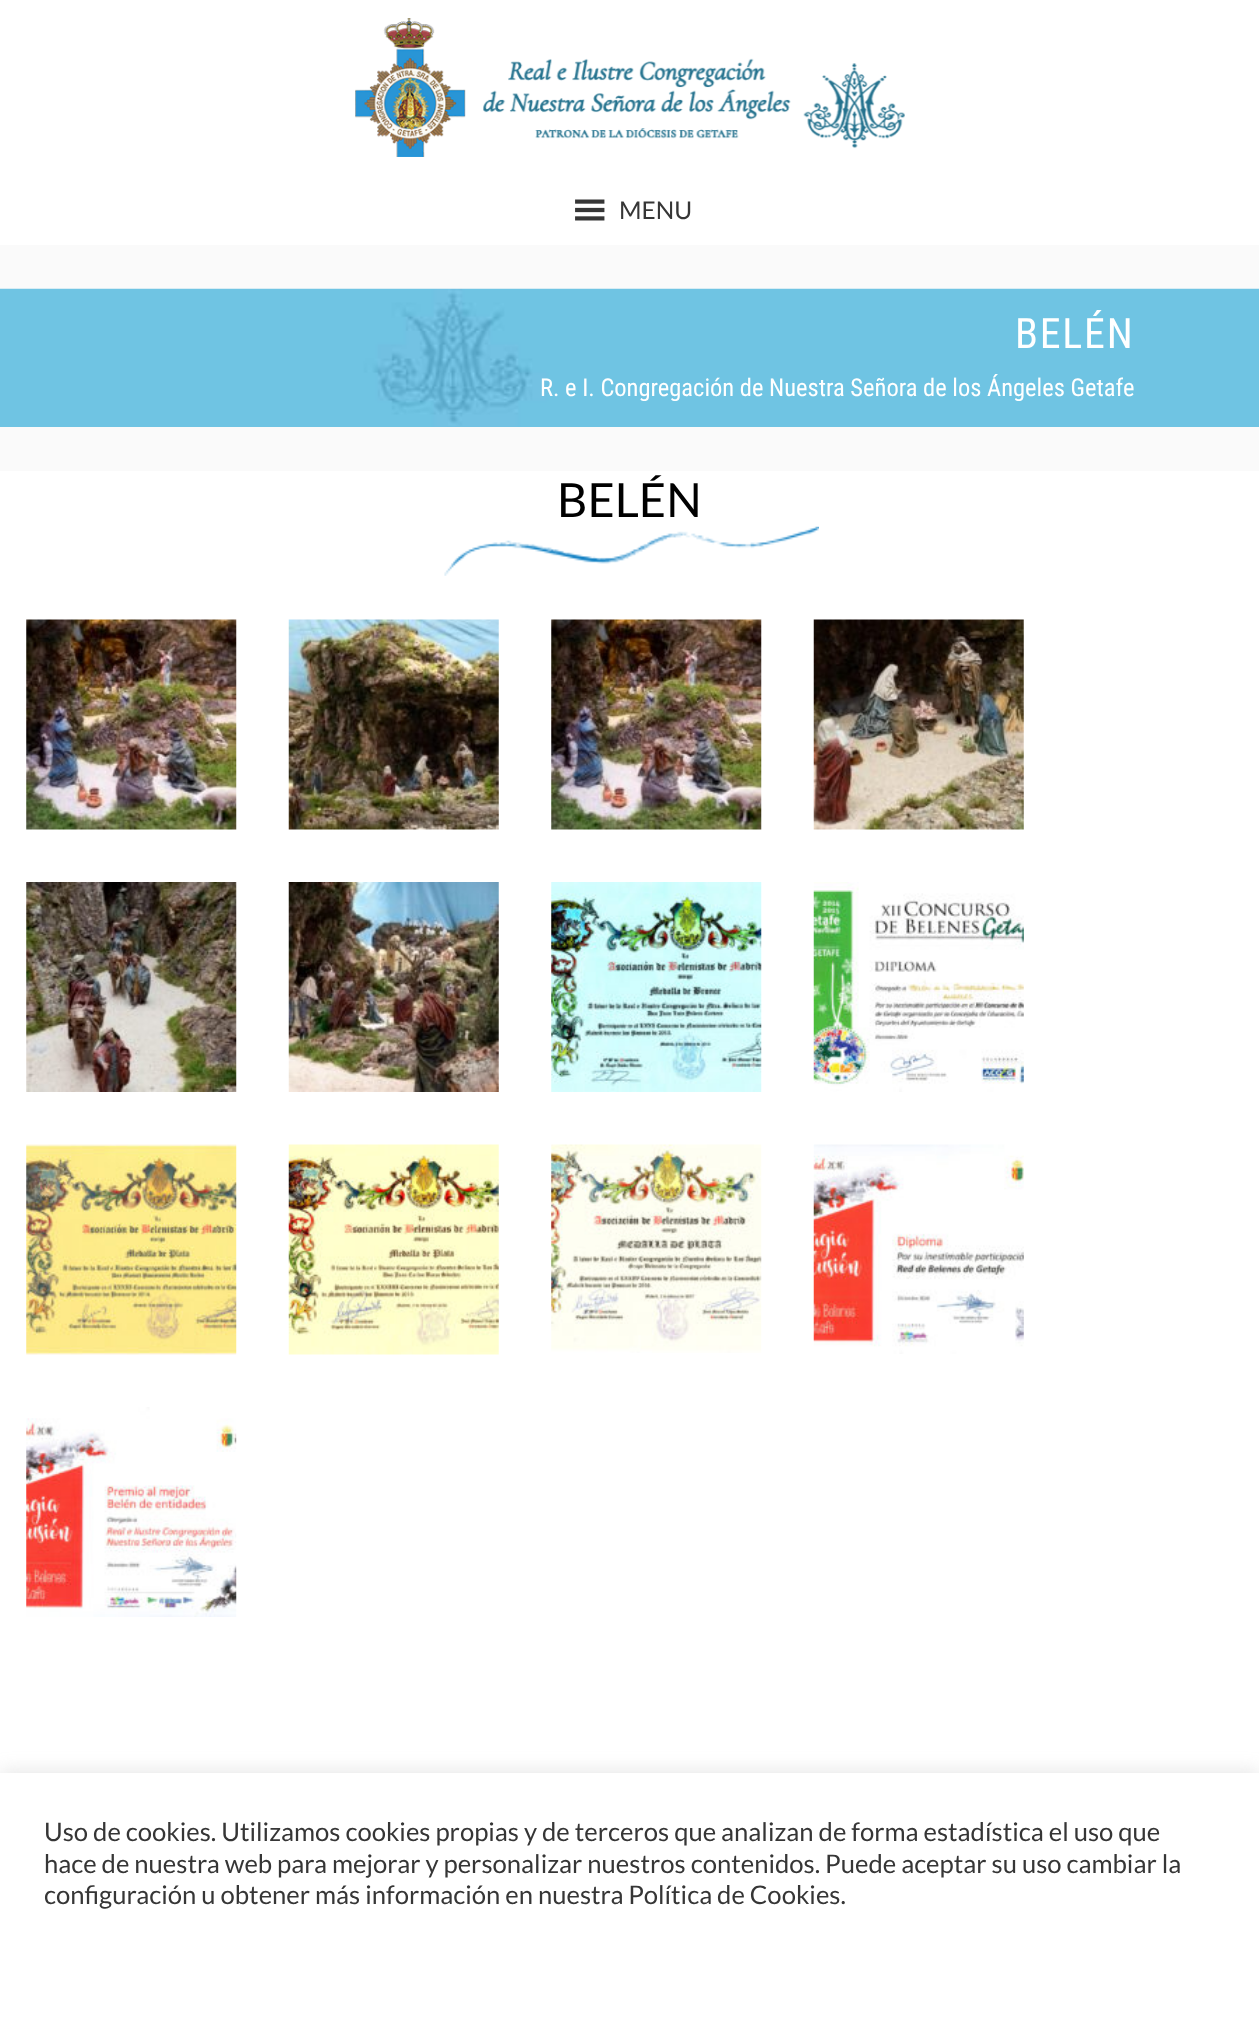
async function draw(canvas) {
  canvas.width = 1259;
  canvas.height = 2044;
  const ctx = canvas.getContext('2d');
  ctx.miterLimit = 4;
  ctx.fontKerning = 'normal';
  function label(s, x, y, font, color) {
    ctx.font = font;
    ctx.fillStyle = color;
    ctx.fillText(s, x, y);
  }
  function rect(x, y, w, h, color) {
    ctx.fillStyle = color;
    ctx.fillRect(x, y, w, h);
  }
  async function image(src, x, y, w, h) {
    const img = new Image();
    img.src = src;
    await img.decode();
    ctx.drawImage(img, x, y, w, h);
  }

  rect(0, 0, 1259, 2044, '#fff');
  await image('assets/img1.png', 355, 18, 550, 139);
  await image('assets/img2.png', 575, 199, 30, 22);
  label('MENU', 619, 219, '24.5px Lato', '#363636');
  rect(0, 245, 1259, 226, '#fafafa');
  await image('assets/img3.png', 0, 288, 1259, 139);
  ctx.letterSpacing = '1.75px';
  label('BELÉN', 1015, 348, '42px Roboto Condensed', '#fff');
  ctx.letterSpacing = '0px';
  label('R. e I. Congregación de Nuestra Señora de los Ángeles Getafe', 540, 396, '24.5px Roboto Condensed', '#fff');
  label('BELÉN', 557, 517, '47px Lato', '#000');
  await image('assets/img4.png', 444, 526, 375, 50);
  await image('assets/img5.png', 26, 619, 211, 211);
  await image('assets/img6.png', 288, 619, 211, 211);
  await image('assets/img7.png', 551, 619, 211, 211);
  await image('assets/img8.png', 813, 619, 211, 211);
  await image('assets/img9.png', 26, 882, 211, 210);
  await image('assets/img10.png', 288, 882, 211, 210);
  await image('assets/img11.png', 551, 882, 211, 210);
  await image('assets/img12.png', 813, 882, 211, 210);
  await image('assets/img13.png', 26, 1144, 211, 211);
  await image('assets/img14.png', 288, 1144, 211, 211);
  await image('assets/img15.png', 551, 1144, 211, 209);
  await image('assets/img16.png', 813, 1144, 211, 210);
  await image('assets/img17.png', 26, 1407, 211, 210);
  ctx.fillStyle = '#acabab4d';
  ctx.filter = 'blur(9px)';
  ctx.beginPath();
  ctx.rect(0, 1771, 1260, 271);
  ctx.fill();
  ctx.filter = 'none';
  rect(0, 1773, 1259, 271, '#fff');
  label('Uso de cookies. Utilizamos cookies propias y de terceros que analizan de forma estadística el uso que', 44, 1841, '25.65px Lato', '#363636');
  label('hace de nuestra web para mejorar y personalizar nuestros contenidos. Puede aceptar su uso cambiar la', 44, 1873, '25.65px Lato', '#363636');
  label('configuración u obtener más información en nuestra Política de Cookies.', 44, 1904, '25.65px Lato', '#363636');
}

draw(document.querySelector('canvas'));
